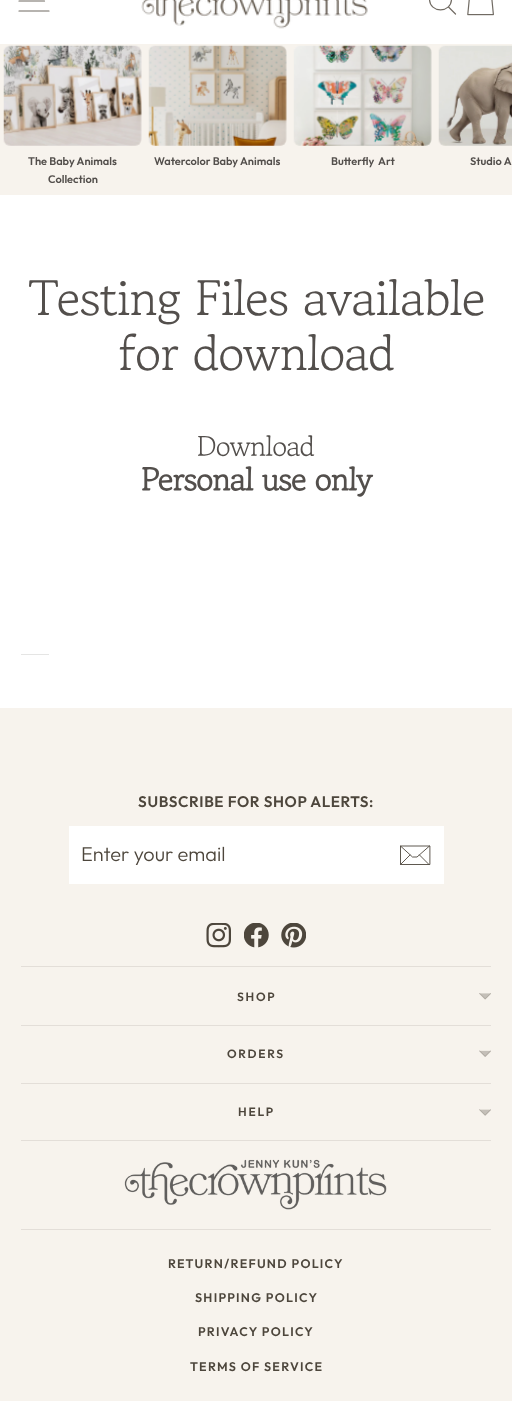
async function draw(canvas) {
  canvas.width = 512;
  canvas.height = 1401;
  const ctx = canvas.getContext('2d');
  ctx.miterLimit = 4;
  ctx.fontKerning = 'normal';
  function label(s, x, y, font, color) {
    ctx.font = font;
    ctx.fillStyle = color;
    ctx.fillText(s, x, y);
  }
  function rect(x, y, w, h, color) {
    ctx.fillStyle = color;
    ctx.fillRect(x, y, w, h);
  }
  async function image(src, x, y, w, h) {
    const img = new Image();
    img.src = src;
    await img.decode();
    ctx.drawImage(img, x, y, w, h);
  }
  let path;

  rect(0, 0, 512, 1401, '#fff');
  path = new Path2D('M19-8.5H49M19 1H44.5M19 11H49');
  ctx.strokeStyle = '#716b63';
  ctx.lineWidth = 1.2;
  ctx.lineCap = 'round';
  ctx.lineJoin = 'round';
  ctx.stroke(path);
  await image('assets/img1.png', 141, 0, 227, 29);
  path = new Path2D('M451.5-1C451.5 13.5 429.5 13.5 429.5-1C429.5-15 451.5-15 451.5-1ZM455.5 14L448.5 7');
  ctx.stroke(path);
  await image('assets/img2.png', 467, 0, 27, 16);
  rect(0, 44, 512, 151, '#f7f3ed');
  await image('assets/img3.png', 3, 45, 139, 101);
  label('The Baby Animals', 28, 165, '600 11px Outfit', '#534f4c');
  label('Collection', 48, 183, '600 11px Outfit', '#534f4c');
  await image('assets/img4.png', 148, 45, 139, 101);
  label('Watercolor Baby Animals', 154, 165, '600 11px Outfit', '#534f4c');
  await image('assets/img5.png', 293, 45, 139, 101);
  ctx.wordSpacing = '2px';
  label('Butterfly Art', 331, 165, '600 11px Outfit', '#534f4c');
  await image('assets/img6.png', 438, 45, 74, 101);
  ctx.wordSpacing = '0px';
  label('Studio A', 470, 165, '600 11px Outfit', '#534f4c');
  ctx.letterSpacing = '-0.9px';
  label('Testing Files available', 28, 319, '50px Gowun Batang', '#534f4c');
  label('for download', 119, 374, '50px Gowun Batang', '#534f4c');
  ctx.letterSpacing = '-0.75px';
  label('Download', 197, 458, '28.5px Gowun Batang', '#534f4c');
  ctx.letterSpacing = '-0.8px';
  label('Personal use only', 141, 493, 'bold 32.25px Gowun Batang', '#534f4c');
  rect(21, 654, 28, 1, '#e5e5e4');
  rect(0, 708, 512, 693, '#f7f3ed');
  ctx.letterSpacing = '0.6px';
  label('SUBSCRIBE FOR SHOP ALERTS:', 138, 807, '600 15.25px Outfit', '#4d463c');
  rect(69, 826, 375, 58, '#fff');
  ctx.letterSpacing = '0px';
  label('Enter your email', 81, 861, '300 20px Outfit', '#4d463c');
  path = new Path2D('M429.5 864.5H400.5V846H429.5ZM400.5 846L412.5 857H417L429.5 846M410 855L400.5 864.5M429 864.5L419.5 855');
  ctx.strokeStyle = '#4d463c';
  ctx.lineWidth = 0.9;
  ctx.stroke(path);
  await image('assets/img7.png', 206, 923, 25, 25);
  await image('assets/img8.png', 244, 923, 25, 25);
  await image('assets/img9.png', 281, 923, 25, 25);
  rect(21, 966, 470, 1, '#e3ded8');
  ctx.letterSpacing = '1.75px';
  label('SHOP', 237, 1001, '600 12px Outfit', '#4d463c');
  await image('assets/img10.png', 479, 993, 12, 7);
  rect(21, 1025, 470, 1, '#e3ded8');
  label('ORDERS', 227, 1058, '600 12px Outfit', '#4d463c');
  await image('assets/img11.png', 479, 1050, 12, 7);
  rect(21, 1083, 470, 1, '#e3ded8');
  label('HELP', 238, 1116, '600 12px Outfit', '#4d463c');
  await image('assets/img12.png', 479, 1109, 12, 7);
  rect(21, 1140, 470, 1, '#e3ded8');
  await image('assets/img13.png', 124, 1159, 263, 51);
  rect(21, 1229, 470, 1, '#e3ded8');
  ctx.letterSpacing = '1.25px';
  label('RETURN/REFUND POLICY', 168, 1268, '600 12.5px Outfit', '#4d463c');
  label('SHIPPING POLICY', 195, 1302, '600 12.5px Outfit', '#4d463c');
  label('PRIVACY POLICY', 198, 1336, '600 12.5px Outfit', '#4d463c');
  label('TERMS OF SERVICE', 190, 1371, '600 12.5px Outfit', '#4d463c');
}

draw(document.querySelector('canvas'));
